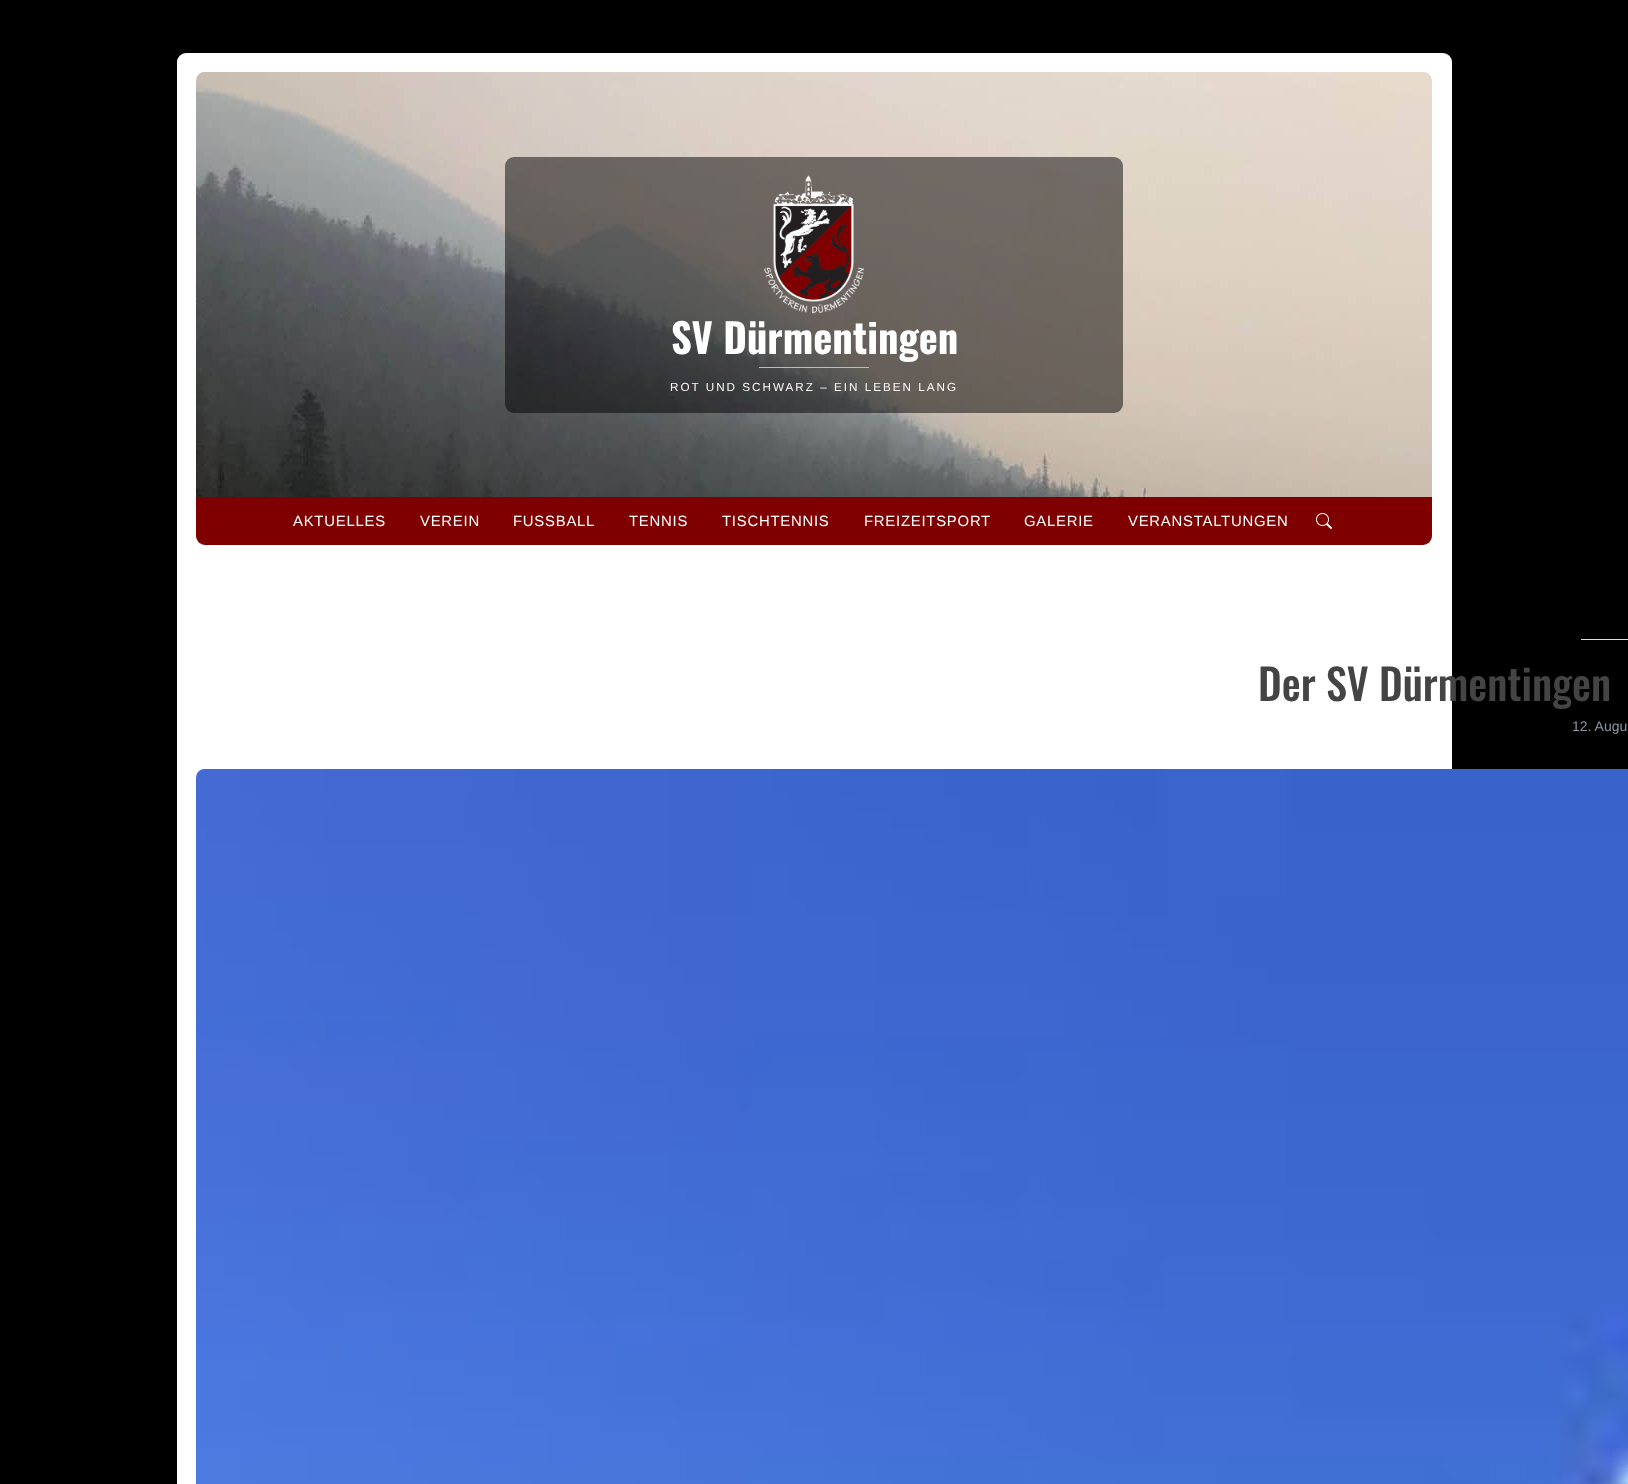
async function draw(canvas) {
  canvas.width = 1628;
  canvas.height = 1484;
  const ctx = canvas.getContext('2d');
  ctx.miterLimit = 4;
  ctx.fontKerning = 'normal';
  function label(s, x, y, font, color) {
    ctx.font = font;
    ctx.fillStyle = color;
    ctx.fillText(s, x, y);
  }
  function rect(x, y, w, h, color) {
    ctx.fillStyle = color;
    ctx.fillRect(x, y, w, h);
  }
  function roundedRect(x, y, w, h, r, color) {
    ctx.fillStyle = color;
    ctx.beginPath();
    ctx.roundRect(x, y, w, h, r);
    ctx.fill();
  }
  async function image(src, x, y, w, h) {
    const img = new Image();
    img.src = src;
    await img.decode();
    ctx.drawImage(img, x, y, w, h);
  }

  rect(0, 0, 1628, 1484, '#000');
  roundedRect(177, 53, 1275, 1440, 9, '#fff');
  await image('assets/img1.png', 196, 72, 1236, 425);
  roundedRect(505, 157, 618, 256, 9, '#00000080');
  await image('assets/img2.png', 764, 175, 100, 139);
  label('SV Dürmentingen', 671, 354, 'bold 40.5px Oswald', '#fff');
  rect(759, 367, 110, 1, '#babdc0');
  ctx.letterSpacing = '2px';
  label('ROT UND SCHWARZ – EIN LEBEN LANG', 670, 391, '11.7px Liberation Sans', '#fff7f7');
  ctx.fillStyle = '#7f0000';
  ctx.beginPath();
  ctx.roundRect(196, 497, 1236, 48, [0, 0, 9, 9]);
  ctx.fill();
  ctx.letterSpacing = '0.75px';
  label('AKTUELLES', 293, 526, '14.9px Liberation Sans', '#fff');
  label('VEREIN', 420, 526, '14.9px Liberation Sans', '#fff');
  label('FUSSBALL', 513, 526, '14.9px Liberation Sans', '#fff');
  label('TENNIS', 629, 526, '14.9px Liberation Sans', '#fff');
  label('TISCHTENNIS', 722, 526, '14.9px Liberation Sans', '#fff');
  label('FREIZEITSPORT', 864, 526, '14.9px Liberation Sans', '#fff');
  label('GALERIE', 1024, 526, '14.9px Liberation Sans', '#fff');
  label('VERANSTALTUNGEN', 1128, 526, '14.9px Liberation Sans', '#fff');
  await image('assets/img3.png', 1316, 513, 16, 16);
  rect(1581, 639, 47, 1, '#dae1e8');
  ctx.letterSpacing = '0px';
  label('Der SV Dürmentingen', 1258, 701, '500 42.5px Oswald', '#444');
  label('12. Augu', 1572, 731, '14px Liberation Sans', '#8f97a0');
  await image('assets/img4.png', 196, 769, 1432, 715);
}

draw(document.querySelector('canvas'));
